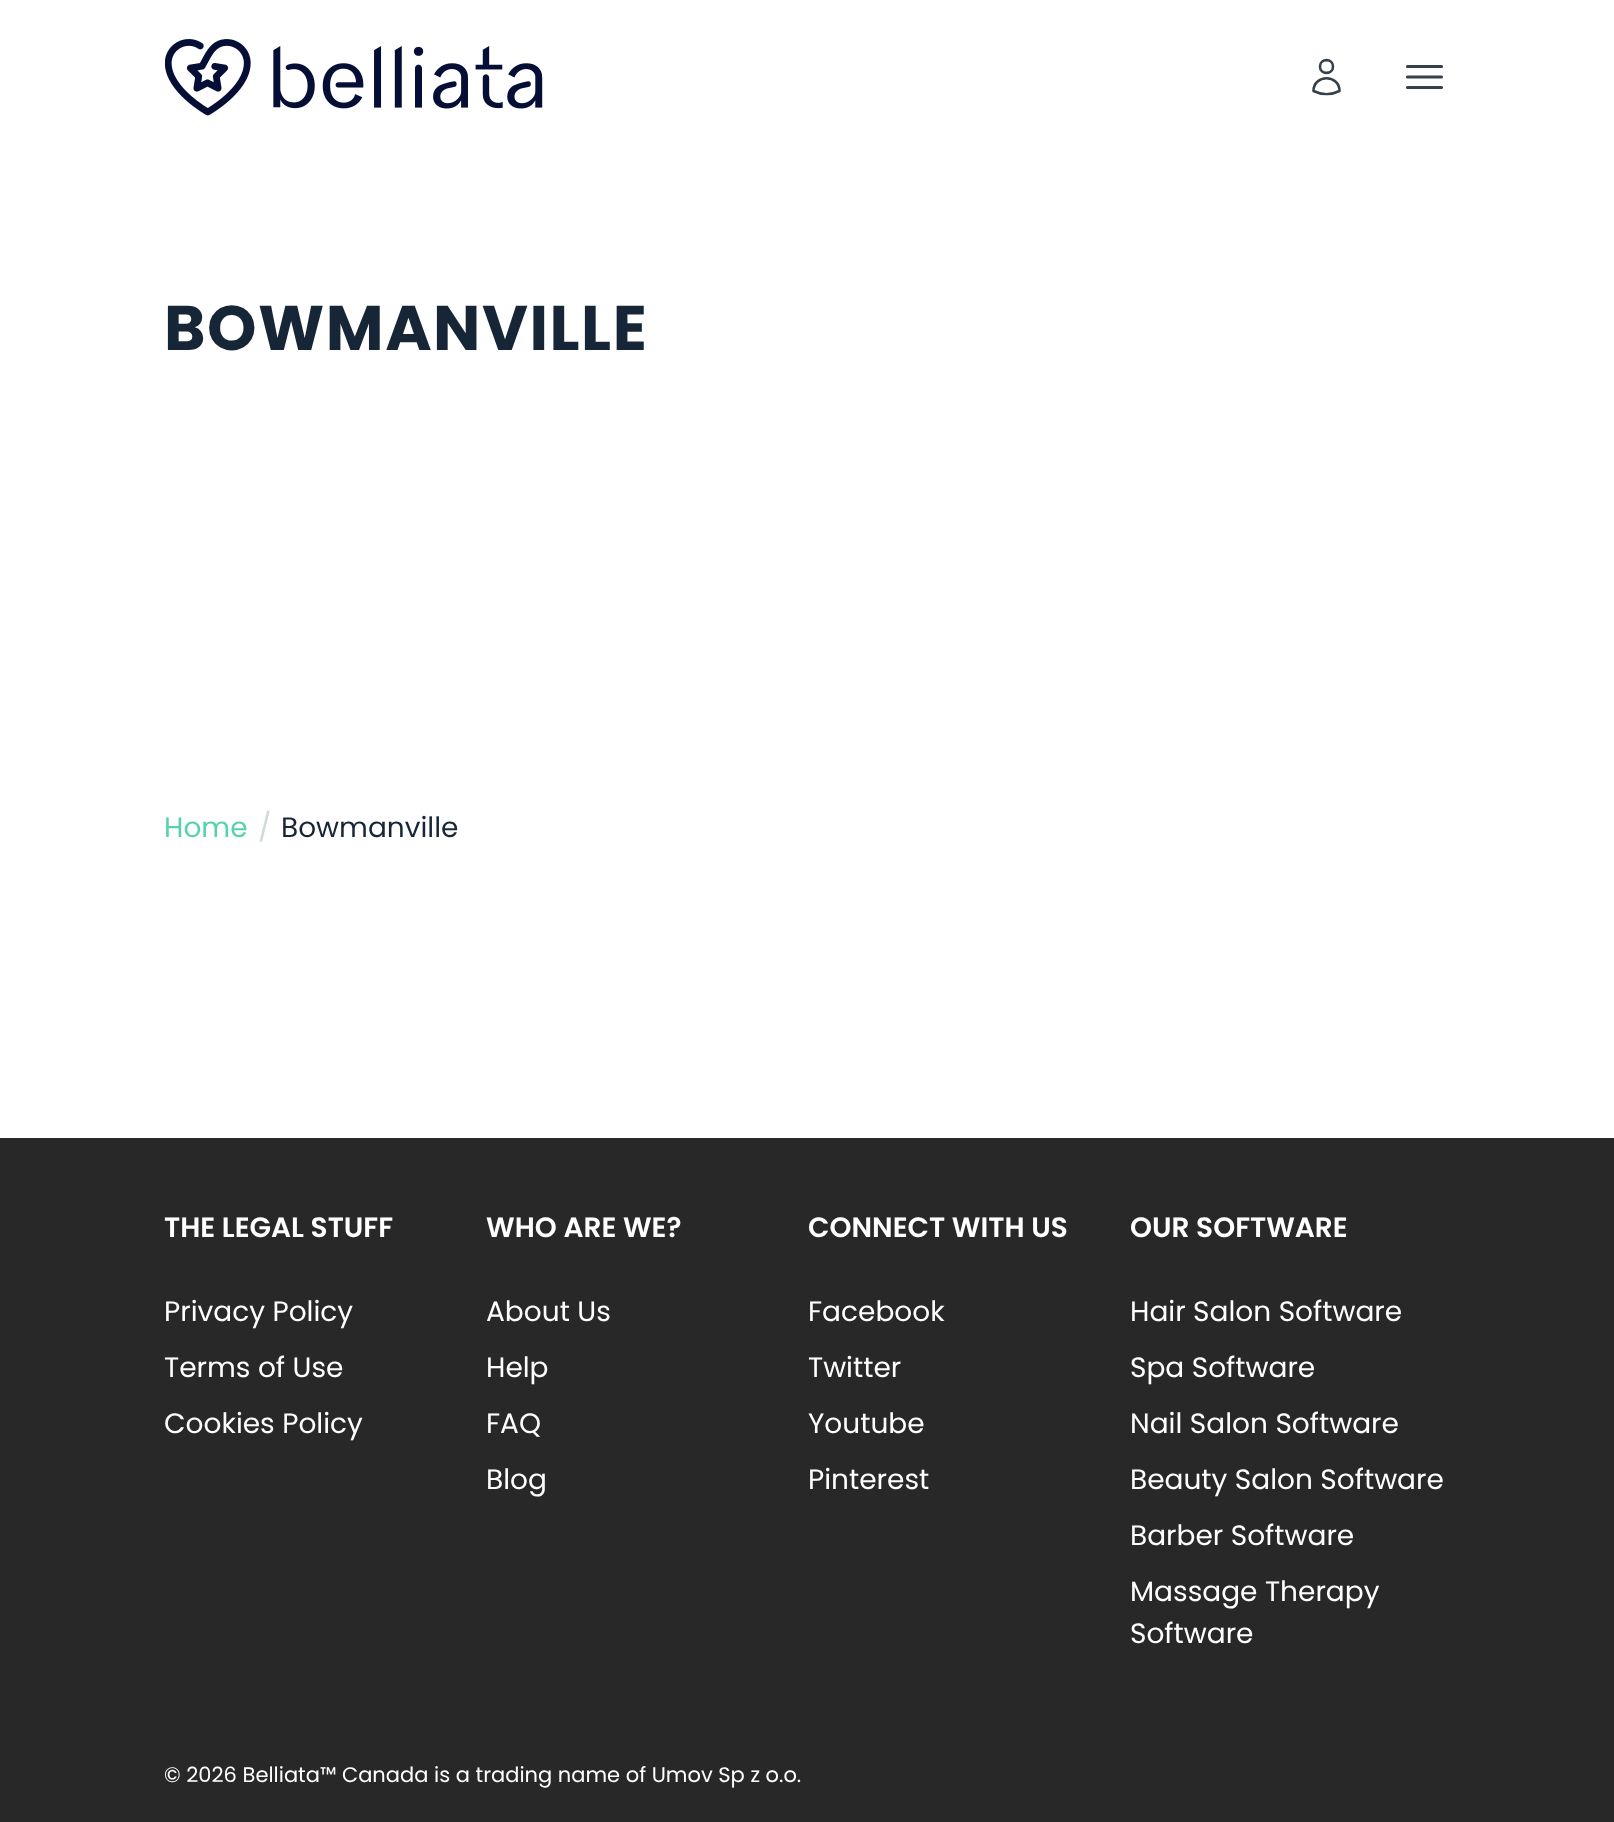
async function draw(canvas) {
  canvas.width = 1614;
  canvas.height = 1822;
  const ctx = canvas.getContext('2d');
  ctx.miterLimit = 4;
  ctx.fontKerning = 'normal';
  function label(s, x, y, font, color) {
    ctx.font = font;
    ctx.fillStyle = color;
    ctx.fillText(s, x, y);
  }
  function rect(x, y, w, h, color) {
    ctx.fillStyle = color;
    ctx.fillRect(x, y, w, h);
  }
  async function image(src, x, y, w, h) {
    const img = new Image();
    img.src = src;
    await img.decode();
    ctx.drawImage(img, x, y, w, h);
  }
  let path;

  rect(0, 0, 1614, 1822, '#fff');
  await image('assets/img1.png', 165, 39, 378, 77);
  path = new Path2D('M1333 66.5C1333 75 1320 75 1320 66.5C1320 58 1333 58 1333 66.5ZM1313.5 91C1313.5 74 1339.5 74 1339.5 91C1331.5 95 1321.5 95 1313.5 91Z');
  ctx.strokeStyle = '#36404a';
  ctx.lineWidth = 2.6;
  ctx.lineCap = 'round';
  ctx.lineJoin = 'round';
  ctx.stroke(path);
  path = new Path2D('M1407.5 66.5H1441.5M1407.5 77H1441.5M1407.5 87.5H1441.5');
  ctx.lineWidth = 3.1;
  ctx.stroke(path);
  ctx.letterSpacing = '1.5px';
  label('BOWMANVILLE', 164, 350, 'bold 63px Poppins', '#162637');
  ctx.letterSpacing = '0px';
  label('Home', 164, 837, '28px Poppins', '#56d2ae');
  label('/', 258, 837, '28px Poppins', '#cfdadb');
  label('Bowmanville', 281, 837, '28px Poppins', '#162637');
  rect(0, 1138, 1614, 684, '#282828');
  label('THE LEGAL STUFF', 164, 1237, '600 28px Poppins', '#fff');
  label('Privacy Policy', 164, 1321, '28px Poppins', '#fff');
  label('Terms of Use', 164, 1377, '28px Poppins', '#fff');
  label('Cookies Policy', 164, 1433, '28px Poppins', '#fff');
  label('WHO ARE WE?', 486, 1237, '600 28px Poppins', '#fff');
  label('About Us', 486, 1321, '28px Poppins', '#fff');
  label('Help', 486, 1377, '28px Poppins', '#fff');
  label('FAQ', 486, 1433, '28px Poppins', '#fff');
  label('Blog', 486, 1489, '28px Poppins', '#fff');
  label('CONNECT WITH US', 808, 1237, '600 28px Poppins', '#fff');
  label('Facebook', 808, 1321, '28px Poppins', '#fff');
  label('Twitter', 808, 1377, '28px Poppins', '#fff');
  label('Youtube', 808, 1433, '28px Poppins', '#fff');
  label('Pinterest', 808, 1489, '28px Poppins', '#fff');
  label('OUR SOFTWARE', 1130, 1237, '600 28px Poppins', '#fff');
  label('Hair Salon Software', 1130, 1321, '28px Poppins', '#fff');
  label('Spa Software', 1130, 1377, '28px Poppins', '#fff');
  label('Nail Salon Software', 1130, 1433, '28px Poppins', '#fff');
  label('Beauty Salon Software', 1130, 1489, '28px Poppins', '#fff');
  label('Barber Software', 1130, 1545, '28px Poppins', '#fff');
  label('Massage Therapy', 1130, 1601, '28px Poppins', '#fff');
  label('Software', 1130, 1643, '28px Poppins', '#fff');
  label('© 2026 Belliata™ Canada is a trading name of Umov Sp z o.o.', 164, 1782, '21px Poppins', '#fff');
}

draw(document.querySelector('canvas'));
